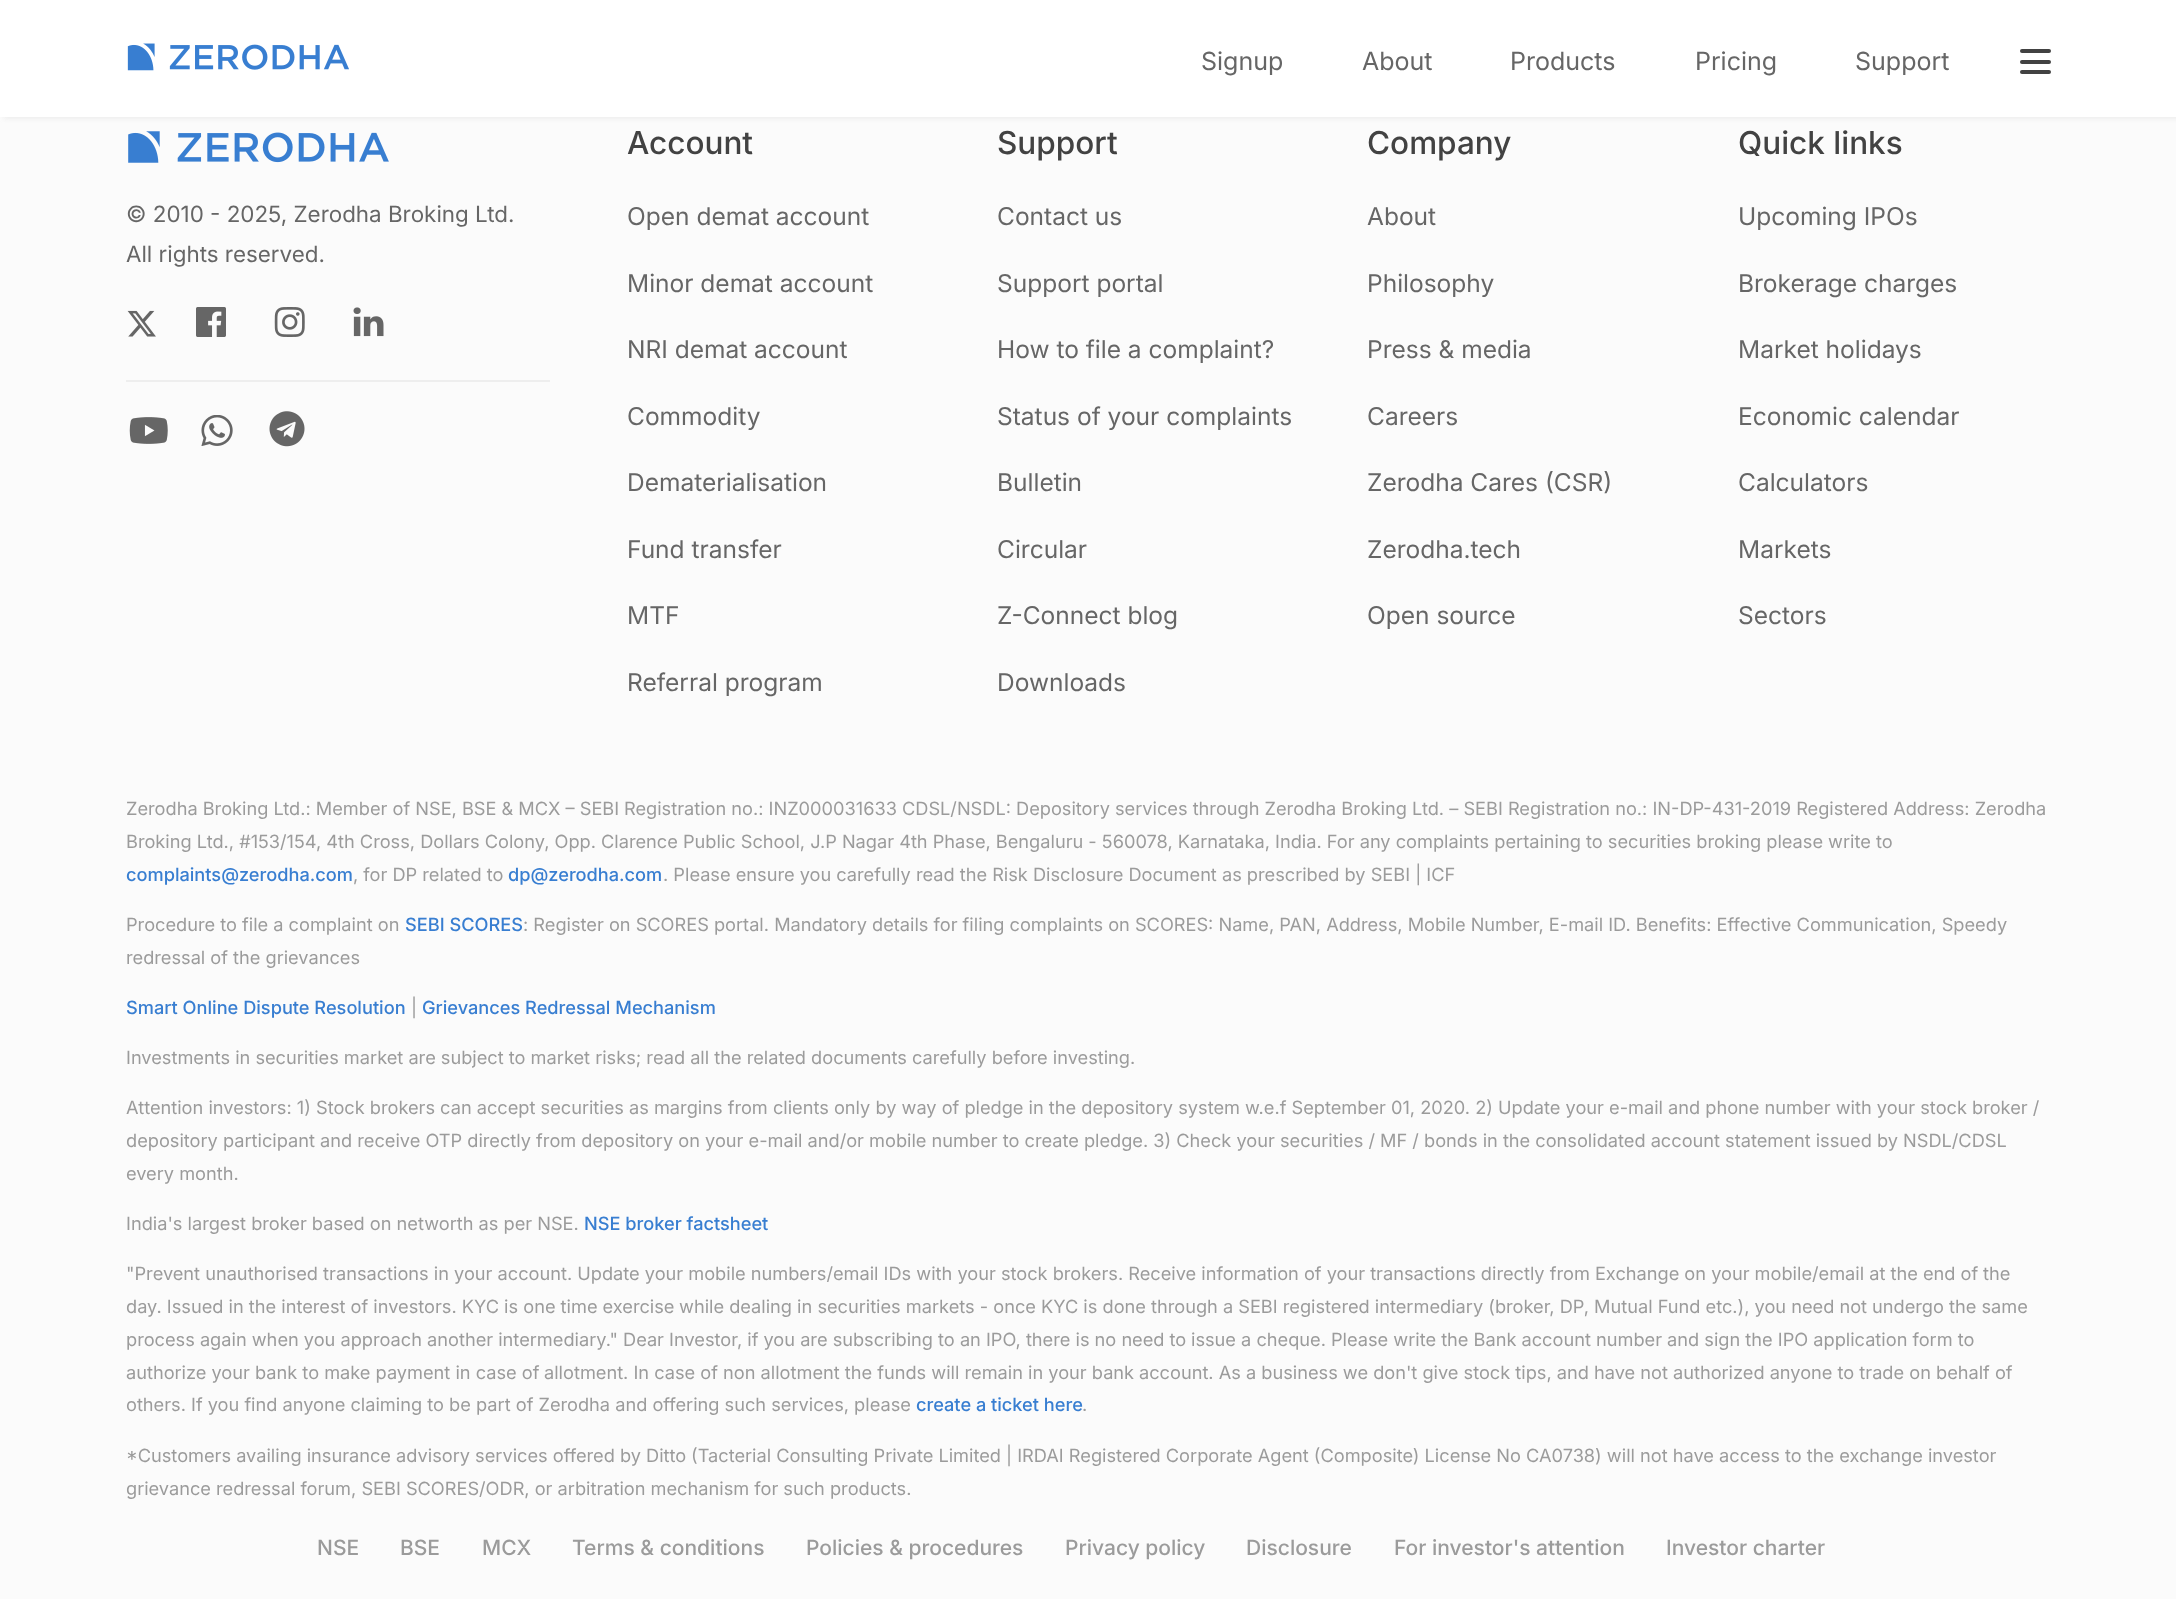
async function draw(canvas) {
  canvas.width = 2176;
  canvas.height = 1599;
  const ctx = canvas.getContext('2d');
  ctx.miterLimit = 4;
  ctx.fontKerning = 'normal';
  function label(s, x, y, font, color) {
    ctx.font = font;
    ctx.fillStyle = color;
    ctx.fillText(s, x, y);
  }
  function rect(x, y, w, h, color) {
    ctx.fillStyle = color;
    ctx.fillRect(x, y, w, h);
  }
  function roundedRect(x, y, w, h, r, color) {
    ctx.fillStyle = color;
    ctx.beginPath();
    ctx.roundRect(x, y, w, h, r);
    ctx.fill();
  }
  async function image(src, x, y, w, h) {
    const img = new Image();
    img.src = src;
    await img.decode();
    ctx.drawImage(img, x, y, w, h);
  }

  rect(0, 0, 2176, 1599, '#fbfbfb');
  ctx.fillStyle = '#eee';
  ctx.filter = 'blur(2px)';
  ctx.beginPath();
  ctx.rect(4, 2, 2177, 117);
  ctx.fill();
  ctx.filter = 'none';
  rect(0, 0, 2176, 117, '#fff');
  await image('assets/img1.png', 127, 43, 222, 28);
  label('Signup', 1201, 70, '25px Inter', '#666');
  label('About', 1362, 70, '25px Inter', '#666');
  label('Products', 1510, 70, '25px Inter', '#666');
  label('Pricing', 1695, 70, '25px Inter', '#666');
  label('Support', 1855, 70, '25px Inter', '#666');
  roundedRect(2020, 49, 31, 4, 2, '#424242');
  roundedRect(2020, 60, 31, 4, 2, '#424242');
  roundedRect(2020, 70, 31, 4, 2, '#424242');
  await image('assets/img2.png', 128, 131, 261, 32);
  label('© 2010 - 2025, Zerodha Broking Ltd.', 126, 222, '22.4px Inter', '#666');
  label('All rights reserved.', 126, 262, '22.4px Inter', '#666');
  await image('assets/img3.png', 127, 310, 29, 27);
  await image('assets/img4.png', 196, 307, 30, 30);
  await image('assets/img5.png', 274, 307, 31, 30);
  await image('assets/img6.png', 353, 307, 31, 30);
  rect(126, 380, 424, 2, '#eee');
  await image('assets/img7.png', 129, 417, 39, 27);
  await image('assets/img8.png', 201, 415, 32, 31);
  await image('assets/img9.png', 269, 411, 36, 36);
  label('Account', 627, 154, '500 31.5px Inter', '#424242');
  label('Open demat account', 627, 225, '24.5px Inter', '#666');
  label('Minor demat account', 627, 292, '24.5px Inter', '#666');
  label('NRI demat account', 627, 358, '24.5px Inter', '#666');
  label('Commodity', 627, 425, '24.5px Inter', '#666');
  label('Dematerialisation', 627, 491, '24.5px Inter', '#666');
  label('Fund transfer', 627, 558, '24.5px Inter', '#666');
  label('MTF', 627, 624, '24.5px Inter', '#666');
  label('Referral program', 627, 691, '24.5px Inter', '#666');
  label('Support', 997, 154, '500 31.5px Inter', '#424242');
  label('Contact us', 997, 225, '24.5px Inter', '#666');
  label('Support portal', 997, 292, '24.5px Inter', '#666');
  label('How to file a complaint?', 997, 358, '24.5px Inter', '#666');
  label('Status of your complaints', 997, 425, '24.5px Inter', '#666');
  label('Bulletin', 997, 491, '24.5px Inter', '#666');
  label('Circular', 997, 558, '24.5px Inter', '#666');
  label('Z-Connect blog', 997, 624, '24.5px Inter', '#666');
  label('Downloads', 997, 691, '24.5px Inter', '#666');
  label('Company', 1367, 154, '500 31.5px Inter', '#424242');
  label('About', 1367, 225, '24.5px Inter', '#666');
  label('Philosophy', 1367, 292, '24.5px Inter', '#666');
  label('Press & media', 1367, 358, '24.5px Inter', '#666');
  label('Careers', 1367, 425, '24.5px Inter', '#666');
  label('Zerodha Cares (CSR)', 1367, 491, '24.5px Inter', '#666');
  label('Zerodha.tech', 1367, 558, '24.5px Inter', '#666');
  label('Open source', 1367, 624, '24.5px Inter', '#666');
  label('Quick links', 1738, 154, '500 31.5px Inter', '#424242');
  label('Upcoming IPOs', 1738, 225, '24.5px Inter', '#666');
  label('Brokerage charges', 1738, 292, '24.5px Inter', '#666');
  label('Market holidays', 1738, 358, '24.5px Inter', '#666');
  label('Economic calendar', 1738, 425, '24.5px Inter', '#666');
  label('Calculators', 1738, 491, '24.5px Inter', '#666');
  label('Markets', 1738, 558, '24.5px Inter', '#666');
  label('Sectors', 1738, 624, '24.5px Inter', '#666');
  label('Zerodha Broking Ltd.: Member of NSE, BSE & MCX – SEBI', 126, 815, '18.2px Inter', '#9b9b9b');
  label('Registration no.: INZ000031633 CDSL/NSDL: Depository services through Zerodha Broking Ltd. – SEBI Registration no.: IN-DP-431-2019 Registered Address: Zerodha', 624, 815, '18.2px Inter', '#9b9b9b');
  label('Broking Ltd., #153/154, 4th Cross, Dollars Colony, Opp. Clarence Public School, J.P Nagar 4th Phase, Bengaluru - 560078, Karnataka, India. For any complaints pertaining to securities broking please write to', 126, 848, '18.2px Inter', '#9b9b9b');
  label('complaints@zerodha.com', 126, 881, '500 18.2px Inter', '#387ed1');
  label(', for DP related to', 353, 881, '18.2px Inter', '#9b9b9b');
  label('dp@zerodha.com', 508, 881, '500 18.2px Inter', '#387ed1');
  label('. Please ensure you carefully read the Risk Disclosure Document as prescribed by SEBI | ICF', 663, 881, '18.2px Inter', '#9b9b9b');
  label('Procedure to file a complaint on', 126, 931, '18.2px Inter', '#9b9b9b');
  label('SEBI SCORES', 405, 931, '500 18.2px Inter', '#387ed1');
  label(': Register on SCORES portal. Mandatory details for filing complaints on SCORES: Name, PAN, Address, Mobile Number, E-mail ID. Benefits: Effective Communication, Speedy', 523, 931, '18.2px Inter', '#9b9b9b');
  label('redressal of the grievances', 126, 964, '18.2px Inter', '#9b9b9b');
  label('Smart Online Dispute Resolution', 126, 1014, '500 18.2px Inter', '#387ed1');
  label('|', 411, 1014, '18.2px Inter', '#9b9b9b');
  label('Grievances Redressal Mechanism', 422, 1014, '500 18.2px Inter', '#387ed1');
  label('Investments in securities market are subject to market risks; read all the related documents carefully before investing.', 126, 1064, '18.2px Inter', '#9b9b9b');
  label('Attention investors: 1) Stock brokers can accept securities as margins from clients only by way of pledge in the depository system w.e.f September 01, 2020. 2) Update your e-mail and phone number with your stock broker /', 126, 1114, '18.2px Inter', '#9b9b9b');
  label('depository participant and receive OTP directly from depository on your e-mail and/or mobile number to create pledge. 3) Check your securities / MF / bonds in the consolidated account statement issued by NSDL/CDSL', 126, 1147, '18.2px Inter', '#9b9b9b');
  label('every month.', 126, 1180, '18.2px Inter', '#9b9b9b');
  label('India\'s largest broker based on networth as per NSE.', 126, 1230, '18.2px Inter', '#9b9b9b');
  label('NSE broker factsheet', 584, 1230, '500 18.2px Inter', '#387ed1');
  label('"Prevent unauthorised transactions in your account. Update your mobile numbers/email IDs with your stock brokers. Receive information of your transactions directly from Exchange on your mobile/email at the end of', 126, 1280, '18.2px Inter', '#9b9b9b');
  label('the', 1983, 1280, '18.2px Inter', '#9b9b9b');
  label('day. Issued in the interest of investors. KYC is one time exercise', 126, 1313, '18.2px Inter', '#9b9b9b');
  label('while dealing in securities markets - once KYC is done through a SEBI registered intermediary (broker, DP, Mutual Fund etc.), you need not', 679, 1313, '18.2px Inter', '#9b9b9b');
  label('undergo the same', 1872, 1313, '18.2px Inter', '#9b9b9b');
  label('process again when you approach another intermediary."', 126, 1346, '18.2px Inter', '#9b9b9b');
  label('Dear Investor, if you are subscribing to an IPO, there is no need to', 623, 1346, '18.2px Inter', '#9b9b9b');
  label('issue a cheque. Please write the Bank account number and sign the IPO application form to', 1191, 1346, '18.2px Inter', '#9b9b9b');
  label('authorize your bank to make payment in case of', 126, 1379, '18.2px Inter', '#9b9b9b');
  label('allotment. In case of non allotment the funds will remain in your bank', 544, 1379, '18.2px Inter', '#9b9b9b');
  label('account. As a business we don\'t give stock tips, and have not authorized anyone to trade on behalf of', 1139, 1379, '18.2px Inter', '#9b9b9b');
  label('others. If you find anyone claiming to be', 126, 1411, '18.2px Inter', '#9b9b9b');
  label('part of Zerodha and offering such services, please', 476, 1411, '18.2px Inter', '#9b9b9b');
  label('create a ticket here', 916, 1411, '500 18.2px Inter', '#387ed1');
  label('.', 1082, 1411, '18.2px Inter', '#9b9b9b');
  label('*Customers availing insurance advisory services offered by Ditto', 126, 1462, '18.2px Inter', '#9b9b9b');
  label('(Tacterial Consulting Private Limited | IRDAI Registered Corporate Agent (Composite) License No CA0738) will not have access to the exchange investor', 691, 1462, '18.2px Inter', '#9b9b9b');
  label('grievance redressal forum, SEBI SCORES/ODR, or arbitration mechanism for such products.', 126, 1495, '18.2px Inter', '#9b9b9b');
  label('NSE', 317, 1555, '500 21px Inter', '#9b9b9b');
  label('BSE', 400, 1555, '500 21px Inter', '#9b9b9b');
  label('MCX', 482, 1555, '500 21px Inter', '#9b9b9b');
  label('Terms & conditions', 572, 1555, '500 21px Inter', '#9b9b9b');
  label('Policies & procedures', 806, 1555, '500 21px Inter', '#9b9b9b');
  label('Privacy policy', 1065, 1555, '500 21px Inter', '#9b9b9b');
  label('Disclosure', 1246, 1555, '500 21px Inter', '#9b9b9b');
  label('For investor\'s attention', 1394, 1555, '500 21px Inter', '#9b9b9b');
  label('Investor charter', 1666, 1555, '500 21px Inter', '#9b9b9b');
}

draw(document.querySelector('canvas'));
